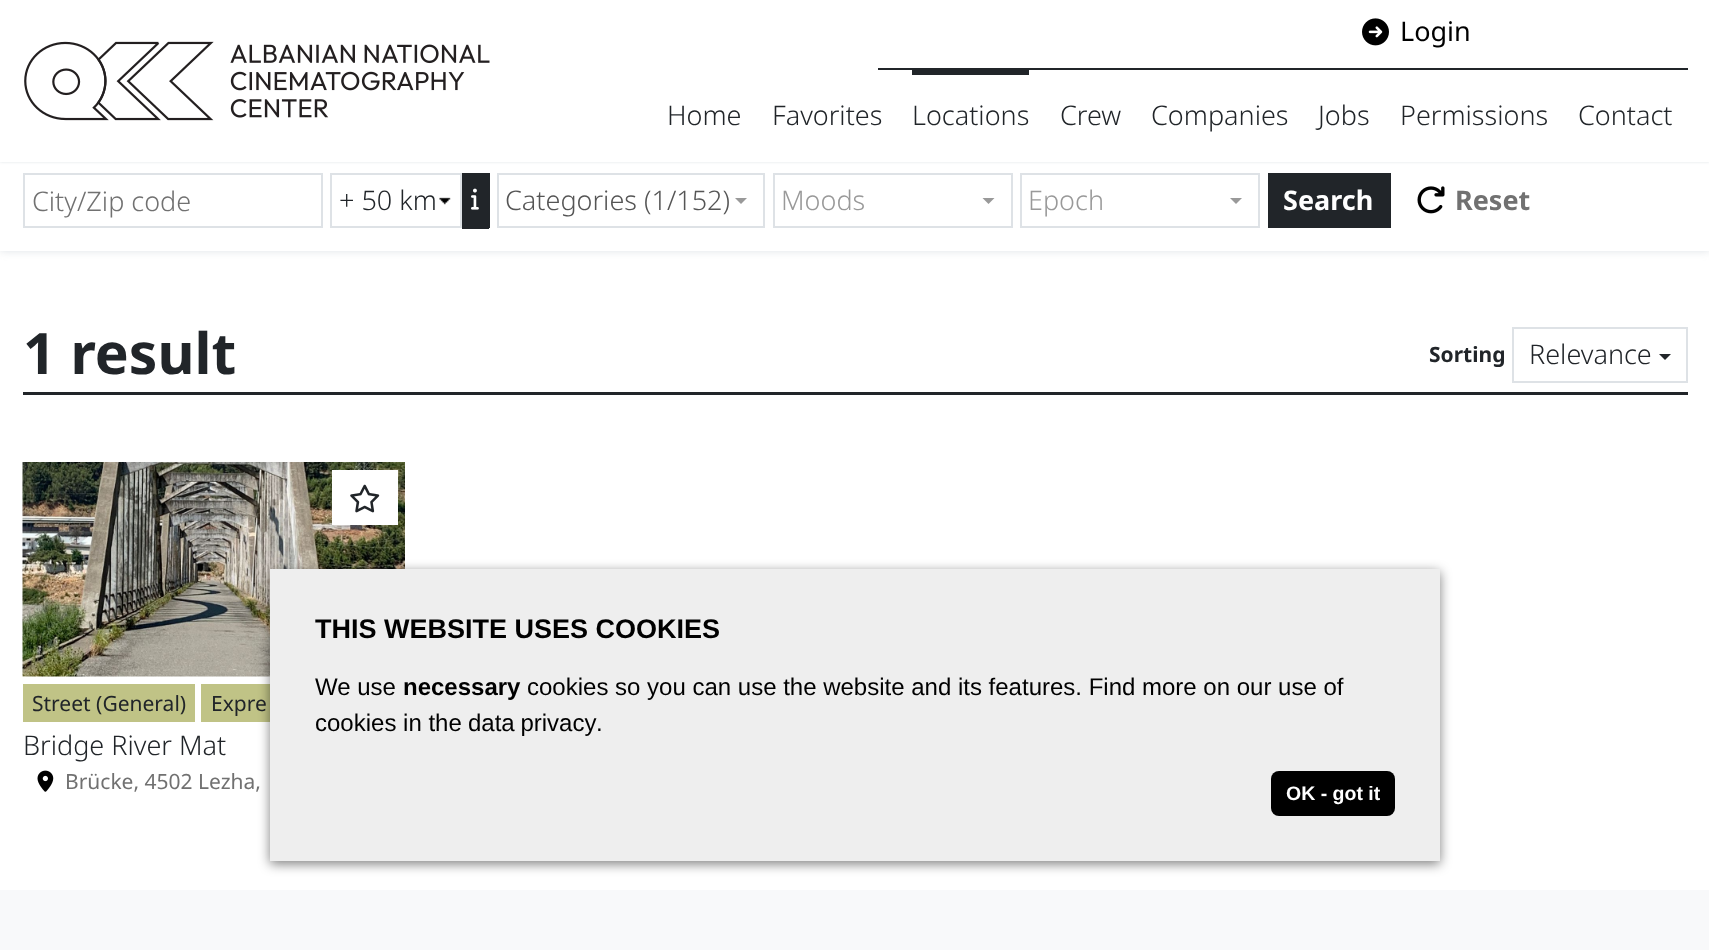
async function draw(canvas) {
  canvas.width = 1709;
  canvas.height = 950;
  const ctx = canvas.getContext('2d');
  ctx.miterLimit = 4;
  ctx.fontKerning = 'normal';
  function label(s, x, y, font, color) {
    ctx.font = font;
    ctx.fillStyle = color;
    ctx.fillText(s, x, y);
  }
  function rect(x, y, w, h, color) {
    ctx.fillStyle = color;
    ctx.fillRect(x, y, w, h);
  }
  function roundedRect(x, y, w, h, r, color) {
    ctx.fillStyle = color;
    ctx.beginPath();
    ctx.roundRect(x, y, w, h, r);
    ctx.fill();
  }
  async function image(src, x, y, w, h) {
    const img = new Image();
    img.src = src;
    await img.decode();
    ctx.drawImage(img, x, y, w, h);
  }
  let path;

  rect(0, 0, 1709, 950, '#fff');
  ctx.fillStyle = '#dee2e6';
  ctx.filter = 'blur(4px)';
  ctx.beginPath();
  ctx.rect(0, 150, 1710, 101);
  ctx.fill();
  ctx.filter = 'none';
  rect(0, 162, 1709, 89, '#fff');
  ctx.fillStyle = '#dee2e6';
  ctx.filter = 'blur(1.5px)';
  ctx.beginPath();
  ctx.rect(0, 0, 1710, 162);
  ctx.fill();
  ctx.filter = 'none';
  rect(0, 0, 1709, 162, '#fff');
  await image('assets/img1.png', 24, 41, 466, 80);
  rect(878, 68, 810, 2, '#212529');
  await image('assets/img2.png', 1362, 18, 27, 28);
  label('Login', 1400, 41, '27px Noto Sans', '#000');
  label('Home', 667, 125, '300 27px Noto Sans', '#212529');
  label('Favorites', 772, 125, '300 27px Noto Sans', '#212529');
  rect(912, 70, 117, 5, '#212529');
  label('Locations', 912, 125, '300 27px Noto Sans', '#212529');
  label('Crew', 1060, 125, '300 27px Noto Sans', '#212529');
  label('Companies', 1151, 125, '300 27px Noto Sans', '#212529');
  label('Jobs', 1318, 125, '300 27px Noto Sans', '#212529');
  label('Permissions', 1400, 125, '300 27px Noto Sans', '#212529');
  label('Contact', 1578, 125, '300 27px Noto Sans', '#212529');
  ctx.strokeStyle = '#dee2e6';
  ctx.lineWidth = 2;
  ctx.strokeRect(24, 174, 298, 53);
  label('City/Zip code', 32, 211, '300 27px Noto Sans', '#717171');
  await image('assets/img3.png', 439, 197, 12, 8);
  ctx.strokeRect(331, 174, 130, 53);
  label('+ 50 km', 339, 210, '300 27px Noto Sans', '#212529');
  rect(462, 173, 26, 54, '#212529');
  rect(488, 173, 2, 55, '#212529');
  rect(462, 227, 27, 2, '#212529');
  await image('assets/img4.png', 471, 188, 8, 22);
  ctx.strokeRect(498, 174, 266, 53);
  label('Categories (1/152)', 505, 210, '300 27px Noto Sans', '#555');
  ctx.fillStyle = '#999';
  path = new Path2D('M735 198H747L741 204Z');
  ctx.fill(path);
  ctx.strokeRect(774, 174, 238, 53);
  label('Moods', 781, 210, '300 27px Noto Sans', '#999');
  path = new Path2D('M982.5 198H994.5L988.5 204Z');
  ctx.fill(path);
  ctx.strokeRect(1021, 174, 238, 53);
  label('Epoch', 1028, 210, '300 27px Noto Sans', '#999');
  path = new Path2D('M1230 198H1242L1236 204Z');
  ctx.fill(path);
  rect(1268, 173, 123, 55, '#212529');
  label('Search', 1283, 210, 'bold 27px Noto Sans', '#fff');
  await image('assets/img5.png', 1417, 186, 28, 28);
  label('Reset', 1455, 210, 'bold 27px Noto Sans', '#717171');
  rect(23, 392, 1665, 3, '#212529');
  label('1 result', 23, 374, 'bold 57px Noto Sans', '#212529');
  label('Sorting', 1429, 362, 'bold 21px Noto Sans', '#212529');
  ctx.strokeRect(1513, 328, 174, 54);
  label('Relevance', 1529, 364, '300 27px Noto Sans', '#212529');
  path = new Path2D('M1659 354H1671L1665 360Z');
  ctx.fill(path);
  await image('assets/img6.png', 22, 462, 383, 215);
  rect(332, 470, 66, 55, '#fff');
  await image('assets/img7.png', 350, 484, 30, 29);
  rect(23, 684, 172, 38, '#c0c386');
  label('Street (General)', 32, 711, '21px Noto Sans', '#212529');
  rect(201, 684, 69, 38, '#c0c386');
  label('Expre', 211, 711, '21px Noto Sans', '#212529');
  label('Bridge River Mat', 23, 755, '300 27px Noto Sans', '#212529');
  await image('assets/img8.png', 37, 770, 17, 22);
  label('Brücke, 4502 Lezha,', 65, 789, '21px Noto Sans', '#717171');
  ctx.fillStyle = '#00000080';
  ctx.filter = 'blur(6px)';
  ctx.beginPath();
  ctx.rect(270, 572, 1170, 292);
  ctx.fill();
  ctx.filter = 'none';
  rect(270, 569, 1170, 292, '#eee');
  label('THIS WEBSITE USES COOKIES', 315, 638, 'bold 27px Liberation Sans', '#000');
  label('We use', 315, 695, '24px Liberation Sans', '#000');
  label('necessary', 403, 695, 'bold 24px Liberation Sans', '#000');
  label('cookies so you can use the website and its features. Find more on our use of', 527, 695, '24px Liberation Sans', '#000');
  label('cookies in the', 315, 731, '24px Liberation Sans', '#000');
  ctx.wordSpacing = '-1px';
  label('data privacy', 468, 731, '24px Liberation Sans', '#000');
  ctx.wordSpacing = '0px';
  label('.', 596, 731, '24px Liberation Sans', '#000');
  roundedRect(1271, 771, 124, 45, 8, '#000');
  label('OK - got it', 1286, 800, 'bold 19.5px Liberation Sans', '#fff');
  rect(0, 890, 1709, 60, '#f8f9fa');
}

draw(document.querySelector('canvas'));
